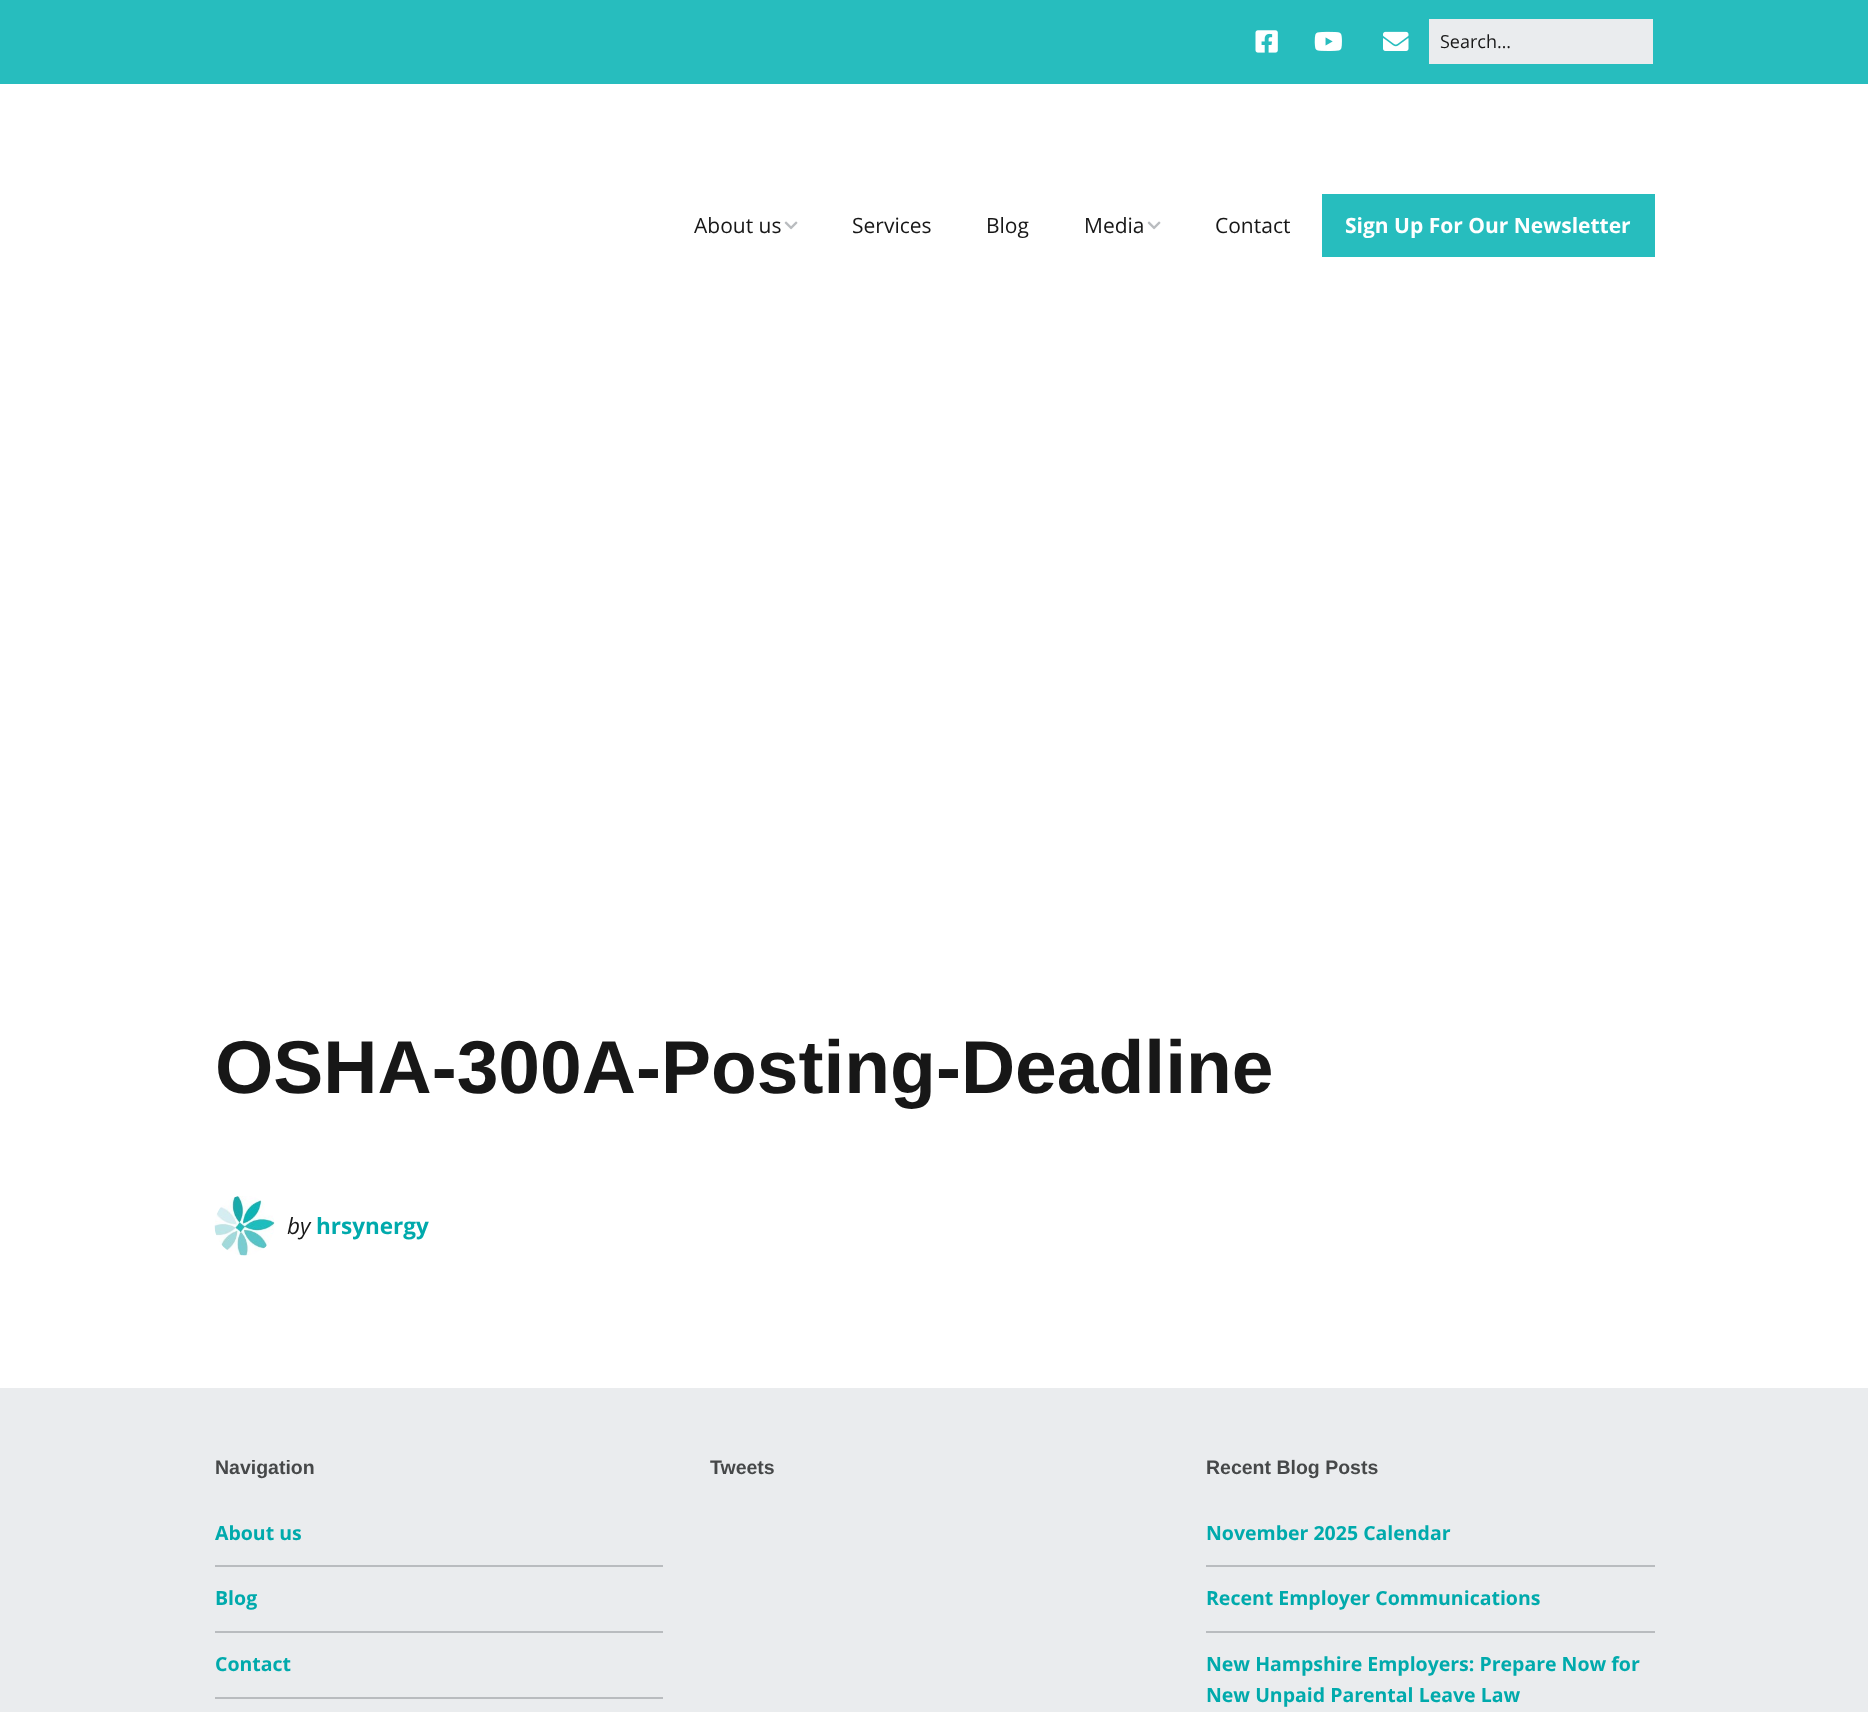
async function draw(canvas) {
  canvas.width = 1868;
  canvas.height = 1712;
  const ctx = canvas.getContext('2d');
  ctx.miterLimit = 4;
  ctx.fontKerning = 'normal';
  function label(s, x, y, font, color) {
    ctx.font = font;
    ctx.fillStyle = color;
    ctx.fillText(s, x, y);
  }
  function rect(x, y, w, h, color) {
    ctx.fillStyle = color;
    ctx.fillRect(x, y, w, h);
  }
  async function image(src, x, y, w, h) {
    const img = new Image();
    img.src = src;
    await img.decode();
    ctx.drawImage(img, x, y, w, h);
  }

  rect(0, 0, 1868, 1712, '#27bdbe');
  await image('assets/img1.png', 1255, 30, 23, 23);
  await image('assets/img2.png', 1314, 31, 28, 20);
  await image('assets/img3.png', 1383, 31, 26, 20);
  rect(1429, 19, 224, 45, '#eaecee');
  label('Search…', 1440, 48, '18px Open Sans', '#171717');
  rect(0, 84, 1868, 1304, '#fff');
  label('About us', 694, 233, '21px Open Sans', '#171717');
  await image('assets/img4.png', 784, 221, 14, 9);
  label('Services', 852, 233, '21px Open Sans', '#171717');
  label('Blog', 986, 233, '21px Open Sans', '#171717');
  label('Media', 1084, 233, '21px Open Sans', '#171717');
  await image('assets/img4.png', 1147, 221, 14, 9);
  label('Contact', 1215, 233, '21px Open Sans', '#171717');
  rect(1322, 194, 333, 63, '#27bdbe');
  label('Sign Up For Our Newsletter', 1345, 233, 'bold 21px Open Sans', '#fff');
  label('OSHA-300A-Posting-Deadline', 215, 1093, 'bold 75px Liberation Sans', '#171717');
  await image('assets/img5.png', 214, 1196, 61, 60);
  label('by', 287, 1234, 'italic 22.5px Open Sans', '#171717');
  label('hrsynergy', 316, 1234, 'bold 22.5px Open Sans', '#00aaac');
  rect(0, 1388, 1868, 324, '#eaecee');
  label('Navigation', 215, 1474, 'bold 19.5px Liberation Sans', '#464849');
  rect(215, 1565, 448, 2, '#b9bcbf');
  label('About us', 215, 1540, 'bold 19.5px Open Sans', '#00aaac');
  rect(215, 1631, 448, 2, '#b9bcbf');
  label('Blog', 215, 1605, 'bold 19.5px Open Sans', '#00aaac');
  rect(215, 1697, 448, 2, '#b9bcbf');
  label('Contact', 215, 1671, 'bold 19.5px Open Sans', '#00aaac');
  label('Tweets', 710, 1474, 'bold 19.5px Liberation Sans', '#464849');
  label('Recent Blog Posts', 1206, 1474, 'bold 19.5px Liberation Sans', '#464849');
  rect(1206, 1565, 449, 2, '#b9bcbf');
  label('November 2025 Calendar', 1206, 1540, 'bold 19.5px Open Sans', '#00aaac');
  rect(1206, 1631, 449, 2, '#b9bcbf');
  label('Recent Employer Communications', 1206, 1605, 'bold 19.5px Open Sans', '#00aaac');
  label('New Hampshire Employers: Prepare Now for', 1206, 1671, 'bold 19.5px Open Sans', '#00aaac');
  label('New Unpaid Parental Leave Law', 1206, 1702, 'bold 19.5px Open Sans', '#00aaac');
}

draw(document.querySelector('canvas'));
